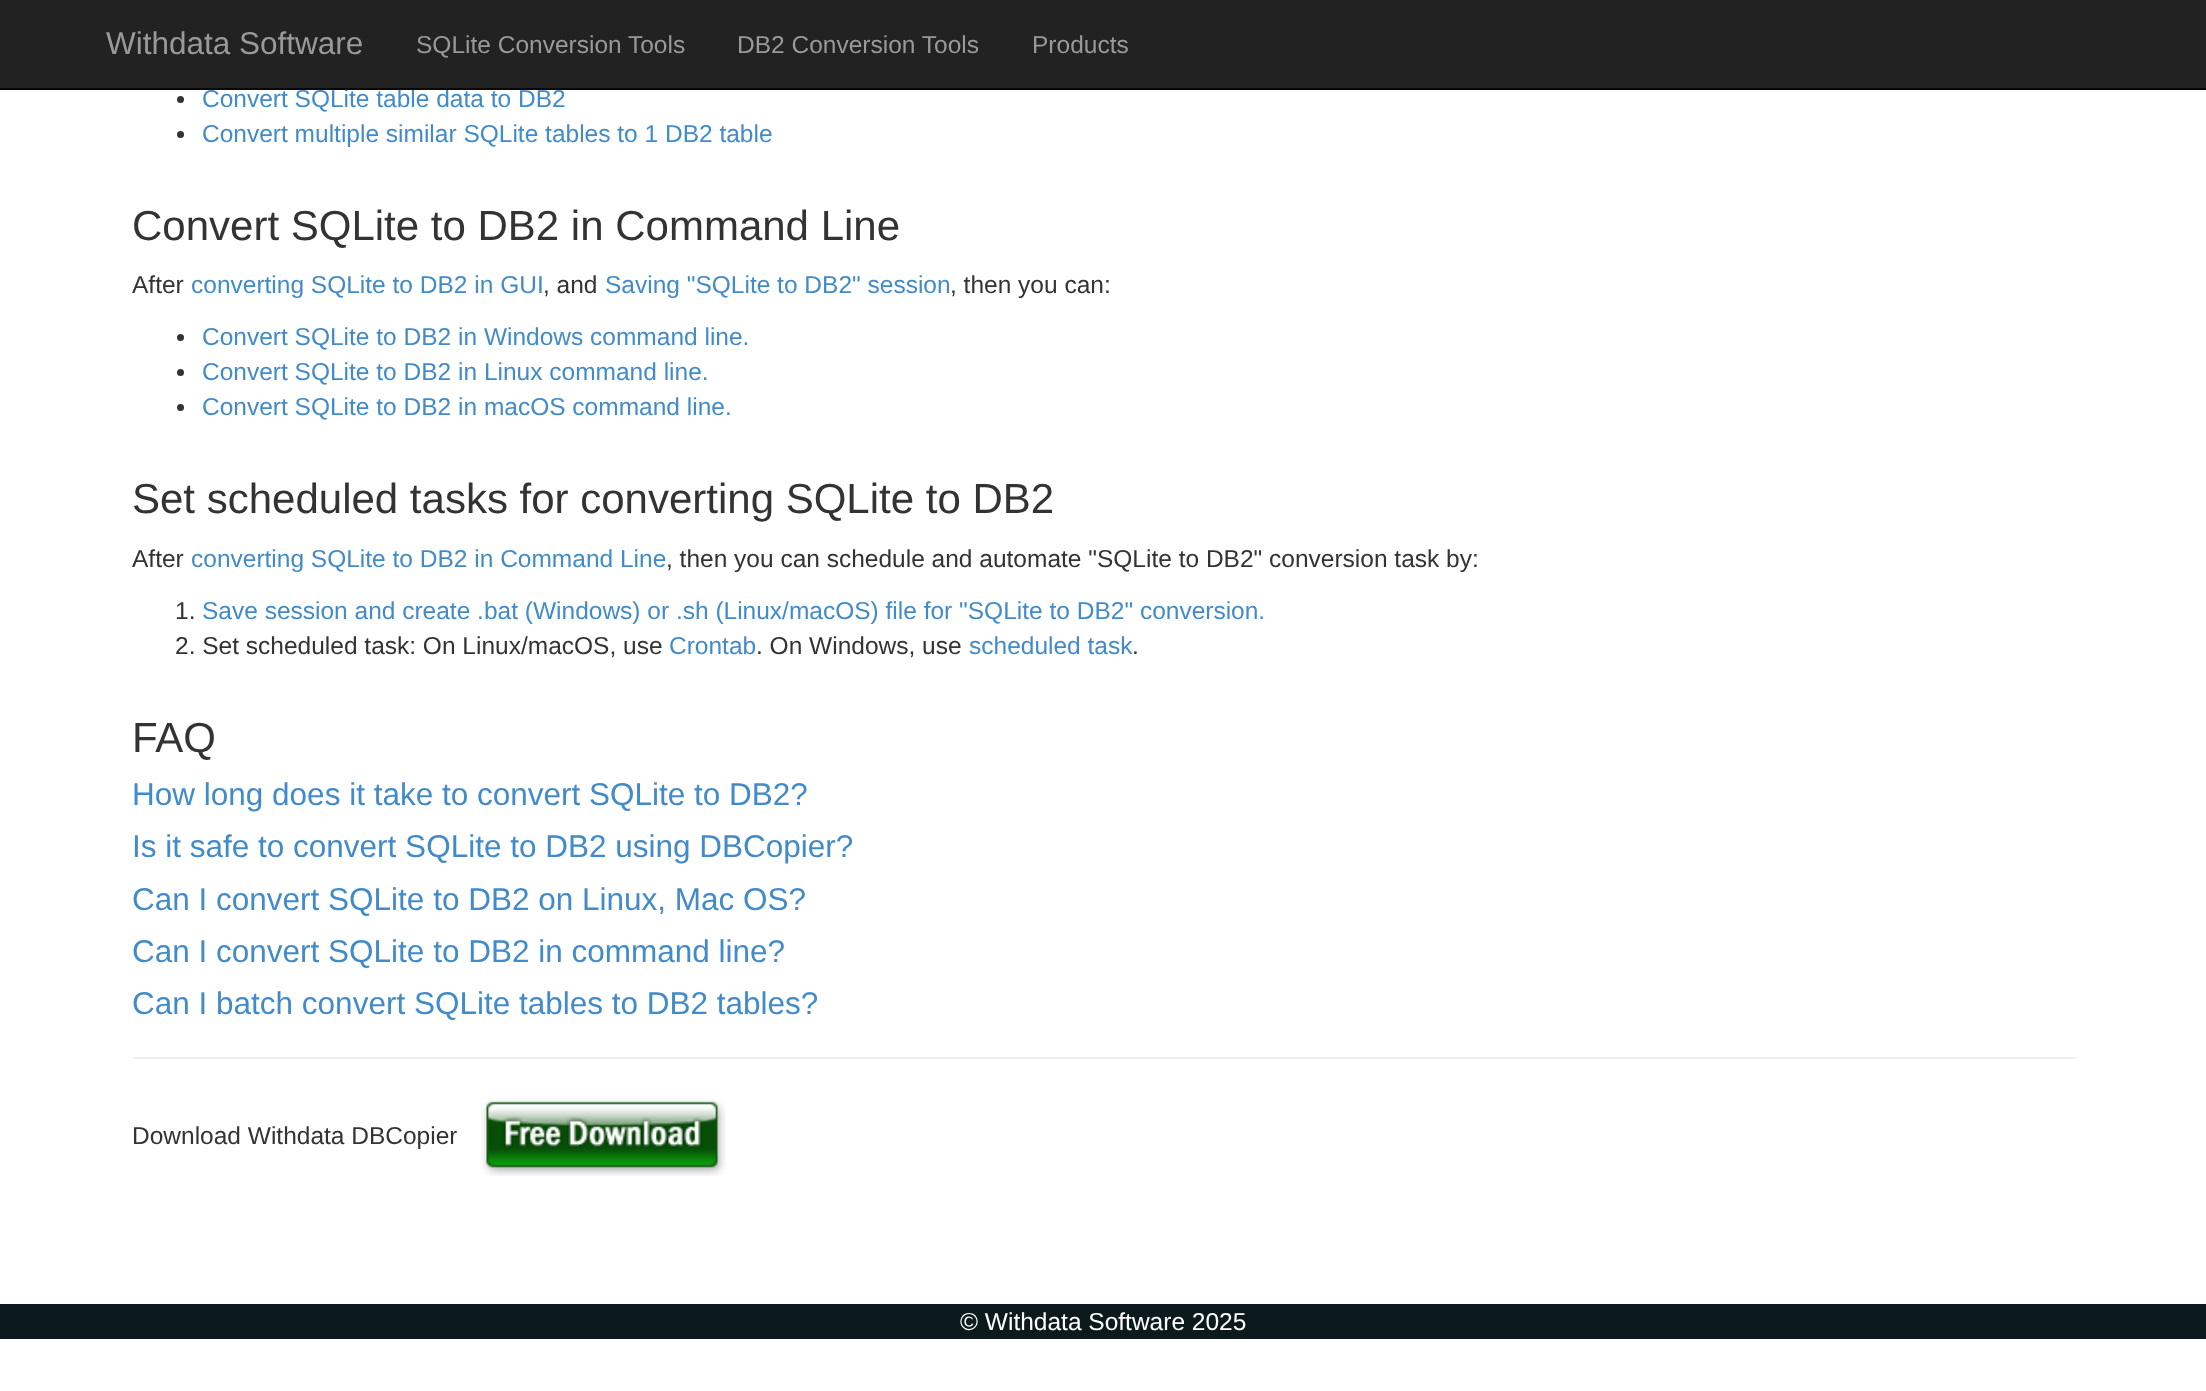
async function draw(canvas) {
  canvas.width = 2206;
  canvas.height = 1391;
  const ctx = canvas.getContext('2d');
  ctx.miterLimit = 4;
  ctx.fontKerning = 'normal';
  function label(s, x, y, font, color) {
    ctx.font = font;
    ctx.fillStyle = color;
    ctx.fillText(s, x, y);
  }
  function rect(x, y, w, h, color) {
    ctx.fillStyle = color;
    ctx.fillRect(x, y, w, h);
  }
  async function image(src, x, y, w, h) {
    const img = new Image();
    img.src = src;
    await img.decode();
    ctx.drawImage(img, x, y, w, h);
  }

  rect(0, 0, 2206, 1391, '#fff');
  rect(0, 0, 2206, 88, '#222');
  label('Convert SQLite table data to DB2', 202, 107, '24.5px Liberation Sans', '#428bca');
  rect(0, 88, 2206, 2, '#080808');
  label('Withdata Software', 106, 54, '31.5px Liberation Sans', '#999');
  label('SQLite Conversion Tools', 416, 53, '24.5px Liberation Sans', '#999');
  label('DB2 Conversion Tools', 737, 53, '24.5px Liberation Sans', '#999');
  label('Products', 1032, 53, '24.5px Liberation Sans', '#999');
  ctx.fillStyle = '#333';
  ctx.beginPath();
  ctx.arc(180.5, 99.5, 3.5, 0, 2 * Math.PI);
  ctx.fill();
  ctx.beginPath();
  ctx.arc(180.5, 134.5, 3.5, 0, 2 * Math.PI);
  ctx.fill();
  label('Convert multiple similar SQLite tables to 1 DB2 table', 202, 142, '24.5px Liberation Sans', '#428bca');
  label('Convert SQLite to DB2 in Command Line', 132, 240, '42px Liberation Sans', '#333');
  label('After', 132, 293, '24.5px Liberation Sans', '#333');
  label('converting SQLite to DB2 in GUI', 191, 293, '24.5px Liberation Sans', '#428bca');
  label(', and', 543, 293, '24.5px Liberation Sans', '#333');
  label('Saving "SQLite to DB2" session', 605, 293, '24.5px Liberation Sans', '#428bca');
  label(', then you can:', 950, 293, '24.5px Liberation Sans', '#333');
  ctx.beginPath();
  ctx.arc(180.5, 337.5, 3.5, 0, 2 * Math.PI);
  ctx.fill();
  label('Convert SQLite to DB2 in Windows command line.', 202, 345, '24.5px Liberation Sans', '#428bca');
  ctx.fillStyle = '#333';
  ctx.beginPath();
  ctx.arc(180.5, 372.5, 3.5, 0, 2 * Math.PI);
  ctx.fill();
  label('Convert SQLite to DB2 in Linux command line.', 202, 380, '24.5px Liberation Sans', '#428bca');
  ctx.fillStyle = '#333';
  ctx.beginPath();
  ctx.arc(180.5, 407.5, 3.5, 0, 2 * Math.PI);
  ctx.fill();
  label('Convert SQLite to DB2 in macOS command line.', 202, 415, '24.5px Liberation Sans', '#428bca');
  label('Set scheduled tasks for converting SQLite to DB2', 132, 513, '42px Liberation Sans', '#333');
  label('After', 132, 567, '24.5px Liberation Sans', '#333');
  label('converting SQLite to DB2 in Command Line', 191, 567, '24.5px Liberation Sans', '#428bca');
  label(', then you can schedule and automate "SQLite to DB2" conversion task by:', 666, 567, '24.5px Liberation Sans', '#333');
  label('1.', 175, 619, '24.5px Liberation Sans', '#333');
  label('Save session and create .bat (Windows) or .sh (Linux/macOS) file for "SQLite to DB2" conversion.', 202, 619, '24.5px Liberation Sans', '#428bca');
  label('2. Set scheduled task: On Linux/macOS, use', 175, 654, '24.5px Liberation Sans', '#333');
  label('Crontab', 669, 654, '24.5px Liberation Sans', '#428bca');
  label('. On Windows, use', 756, 654, '24.5px Liberation Sans', '#333');
  label('scheduled task', 969, 654, '24.5px Liberation Sans', '#428bca');
  label('.', 1132, 654, '24.5px Liberation Sans', '#333');
  label('FAQ', 132, 752, '42px Liberation Sans', '#333');
  label('How long does it take to convert SQLite to DB2?', 132, 805, '31.5px Liberation Sans', '#428bca');
  label('Is it safe to convert SQLite to DB2 using DBCopier?', 132, 857, '31.5px Liberation Sans', '#428bca');
  label('Can I convert SQLite to DB2 on Linux, Mac OS?', 132, 910, '31.5px Liberation Sans', '#428bca');
  label('Can I convert SQLite to DB2 in command line?', 132, 962, '31.5px Liberation Sans', '#428bca');
  label('Can I batch convert SQLite tables to DB2 tables?', 132, 1014, '31.5px Liberation Sans', '#428bca');
  rect(133, 1057, 1943, 2, '#eee');
  label('Download Withdata DBCopier', 132, 1144, '24.5px Liberation Sans', '#333');
  await image('assets/img1.png', 456, 1099, 270, 77);
  rect(0, 1304, 2206, 35, '#0c1a1e');
  label('© Withdata Software 2025', 960, 1330, '24.5px Liberation Sans', '#fff');
}

draw(document.querySelector('canvas'));
